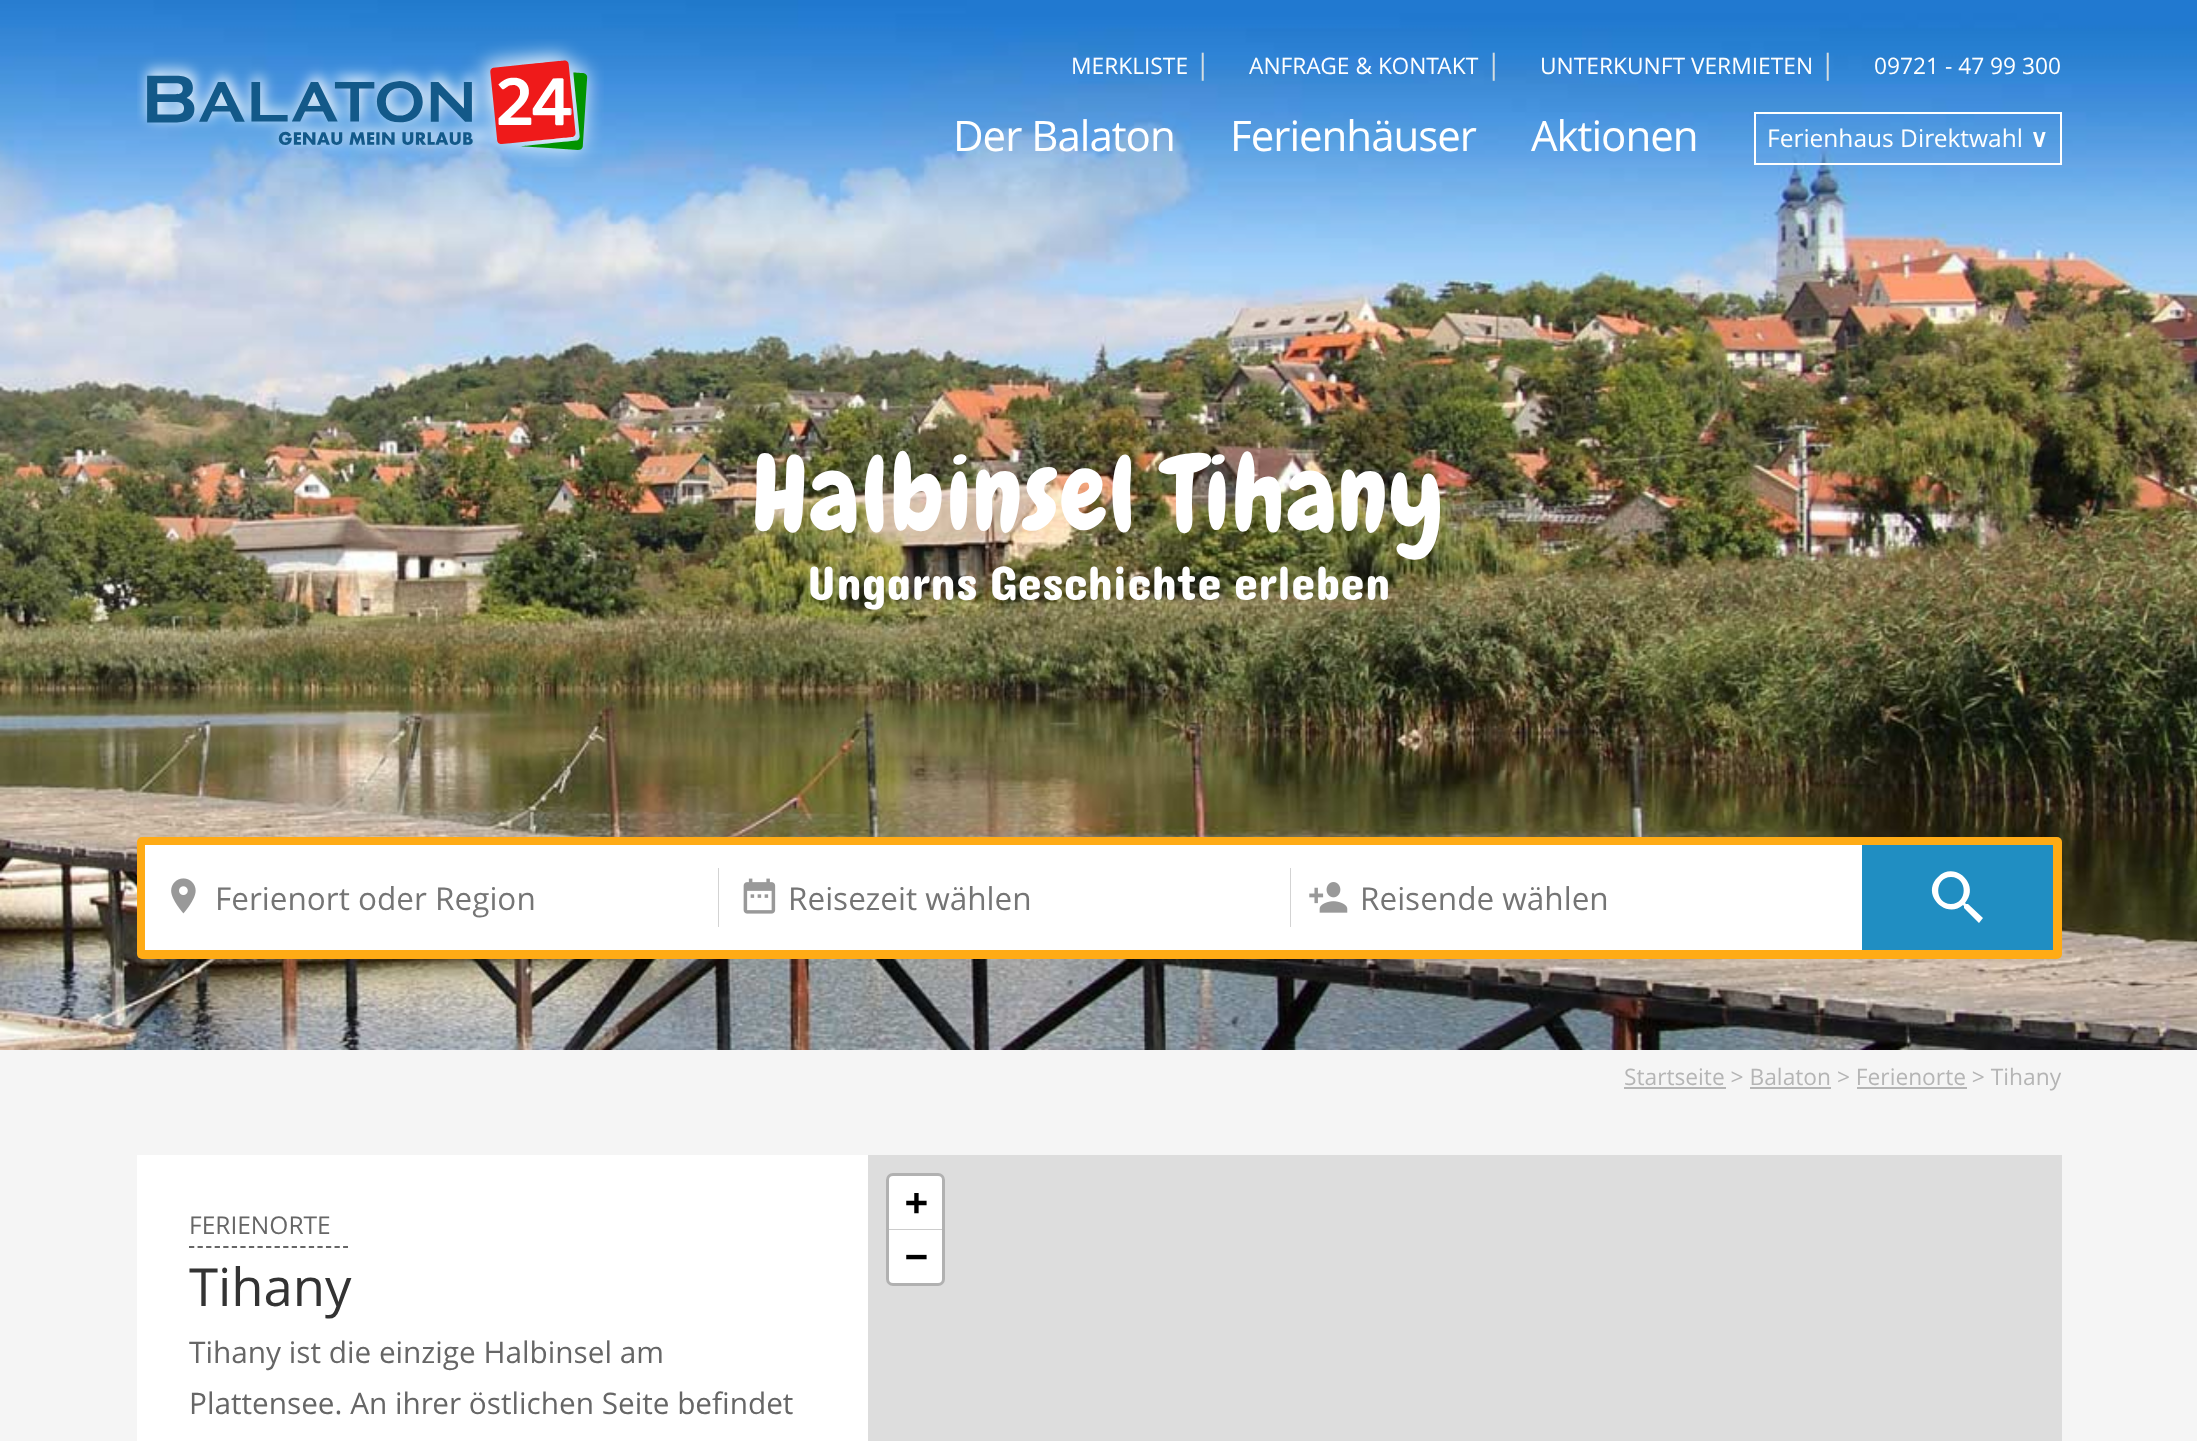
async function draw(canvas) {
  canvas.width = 2197;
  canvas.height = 1441;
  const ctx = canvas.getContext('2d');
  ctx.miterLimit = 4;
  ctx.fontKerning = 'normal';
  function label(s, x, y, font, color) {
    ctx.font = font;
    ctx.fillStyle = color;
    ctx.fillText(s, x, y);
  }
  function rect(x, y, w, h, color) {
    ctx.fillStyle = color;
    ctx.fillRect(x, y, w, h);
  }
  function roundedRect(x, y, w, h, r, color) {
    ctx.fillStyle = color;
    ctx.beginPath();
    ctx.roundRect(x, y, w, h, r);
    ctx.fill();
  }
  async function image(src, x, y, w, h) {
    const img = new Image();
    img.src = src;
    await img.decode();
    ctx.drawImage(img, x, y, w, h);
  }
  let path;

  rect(0, 0, 2197, 1441, '#f5f5f5');
  await image('assets/img1.png', 0, 0, 2197, 1050);
  await image('assets/img2.png', 137, 39, 467, 128);
  label('MERKLISTE', 1071, 74, '22.75px Open Sans', '#fff');
  label('|', 1195, 74, '28px Open Sans', '#d5dde0');
  label('ANFRAGE & KONTAKT', 1249, 74, '22.75px Open Sans', '#fff');
  label('|', 1486, 74, '28px Open Sans', '#d5dde0');
  label('UNTERKUNFT VERMIETEN', 1540, 74, '22.75px Open Sans', '#fff');
  label('|', 1820, 74, '28px Open Sans', '#d5dde0');
  label('09721 - 47 99 300', 1874, 74, '22.75px Open Sans', '#fff');
  ctx.letterSpacing = '-1px';
  label('Der Balaton', 953, 151, '42px Open Sans', '#fff');
  label('Ferienhäuser', 1230, 151, '42px Open Sans', '#fff');
  label('Aktionen', 1531, 151, '42px Open Sans', '#fff');
  ctx.strokeStyle = '#fff';
  ctx.lineWidth = 2;
  ctx.strokeRect(1755, 113, 306, 51);
  ctx.letterSpacing = '0px';
  label('Ferienhaus Direktwahl', 1767, 147, '24.5px Open Sans', '#fff');
  label('∨', 2030, 147, 'bold 24.5px DejaVu Sans', '#fff');
  ctx.letterSpacing = '1.75px';
  label('Halbinsel Tihany', 752, 530, '105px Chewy', '#fff');
  ctx.letterSpacing = '0px';
  ctx.wordSpacing = '-7px';
  label('Ungarns Geschichte erleben', 807, 600, '49px Concert One', '#fff');
  roundedRect(137, 837, 1925, 122, 5, '#ffab15');
  rect(145, 845, 1717, 105, '#fff');
  await image('assets/img3.png', 171, 878, 25, 36);
  ctx.wordSpacing = '0px';
  label('Ferienort oder Region', 215, 910, '31.5px Open Sans', '#757575');
  await image('assets/img4.png', 718, 868, 58, 59);
  label('Reisezeit wählen', 788, 910, '31.5px Open Sans', '#757575');
  await image('assets/img5.png', 1290, 868, 58, 59);
  label('Reisende wählen', 1360, 910, '31.5px Open Sans', '#757575');
  rect(1862, 845, 191, 105, '#208ec2');
  ctx.fillStyle = '#fff';
  path = new Path2D('M1968 904H1966L1965 903C1981 885 1955 860 1938 877C1920 894 1946 920 1963 905L1964 906V908L1979 923L1983 918ZM1951 904C1934 904 1934 877 1951 877C1968 877 1968 904 1951 904Z');
  ctx.fill(path);
  rect(1624, 1087, 102, 2, '#b5b5b5');
  label('Startseite > Balaton > Ferienorte > Tihany', 1624, 1085, '22.75px Open Sans', '#b5b5b5');
  rect(1750, 1087, 81, 2, '#b5b5b5');
  rect(1857, 1087, 110, 2, '#b5b5b5');
  rect(137, 1155, 731, 286, '#fff');
  label('FERIENORTE', 189, 1234, '24.5px Open Sans', '#666');
  path = new Path2D('M189 1247H348');
  ctx.strokeStyle = '#666';
  ctx.lineWidth = 1.8;
  ctx.setLineDash([5.25, 3.31]);
  ctx.stroke(path);
  label('Tihany', 189, 1306, '52.5px Open Sans', '#333');
  label('Tihany ist die einzige Halbinsel am', 189, 1363, '29.75px Open Sans', '#666');
  label('Plattensee. An ihrer östlichen Seite befindet', 189, 1414, '29.75px Open Sans', '#666');
  rect(868, 1155, 1194, 286, '#ddd');
  ctx.beginPath();
  ctx.roundRect(888, 1175, 55, 109, 5);
  ctx.strokeStyle = '#b1b1b1';
  ctx.lineWidth = 4;
  ctx.setLineDash([]);
  ctx.stroke();
  ctx.fillStyle = '#fff';
  ctx.beginPath();
  ctx.roundRect(889, 1176, 53, 54, [4, 4, 0, 0]);
  ctx.fill();
  rect(889, 1229, 53, 1, '#ccc');
  label('+', 905, 1215, 'bold 38px DejaVu Sans Mono', '#000');
  ctx.fillStyle = '#fff';
  ctx.beginPath();
  ctx.roundRect(889, 1230, 53, 53, [0, 0, 4, 4]);
  ctx.fill();
  label('−', 905, 1269, 'bold 38px DejaVu Sans Mono', '#000');
}

draw(document.querySelector('canvas'));
